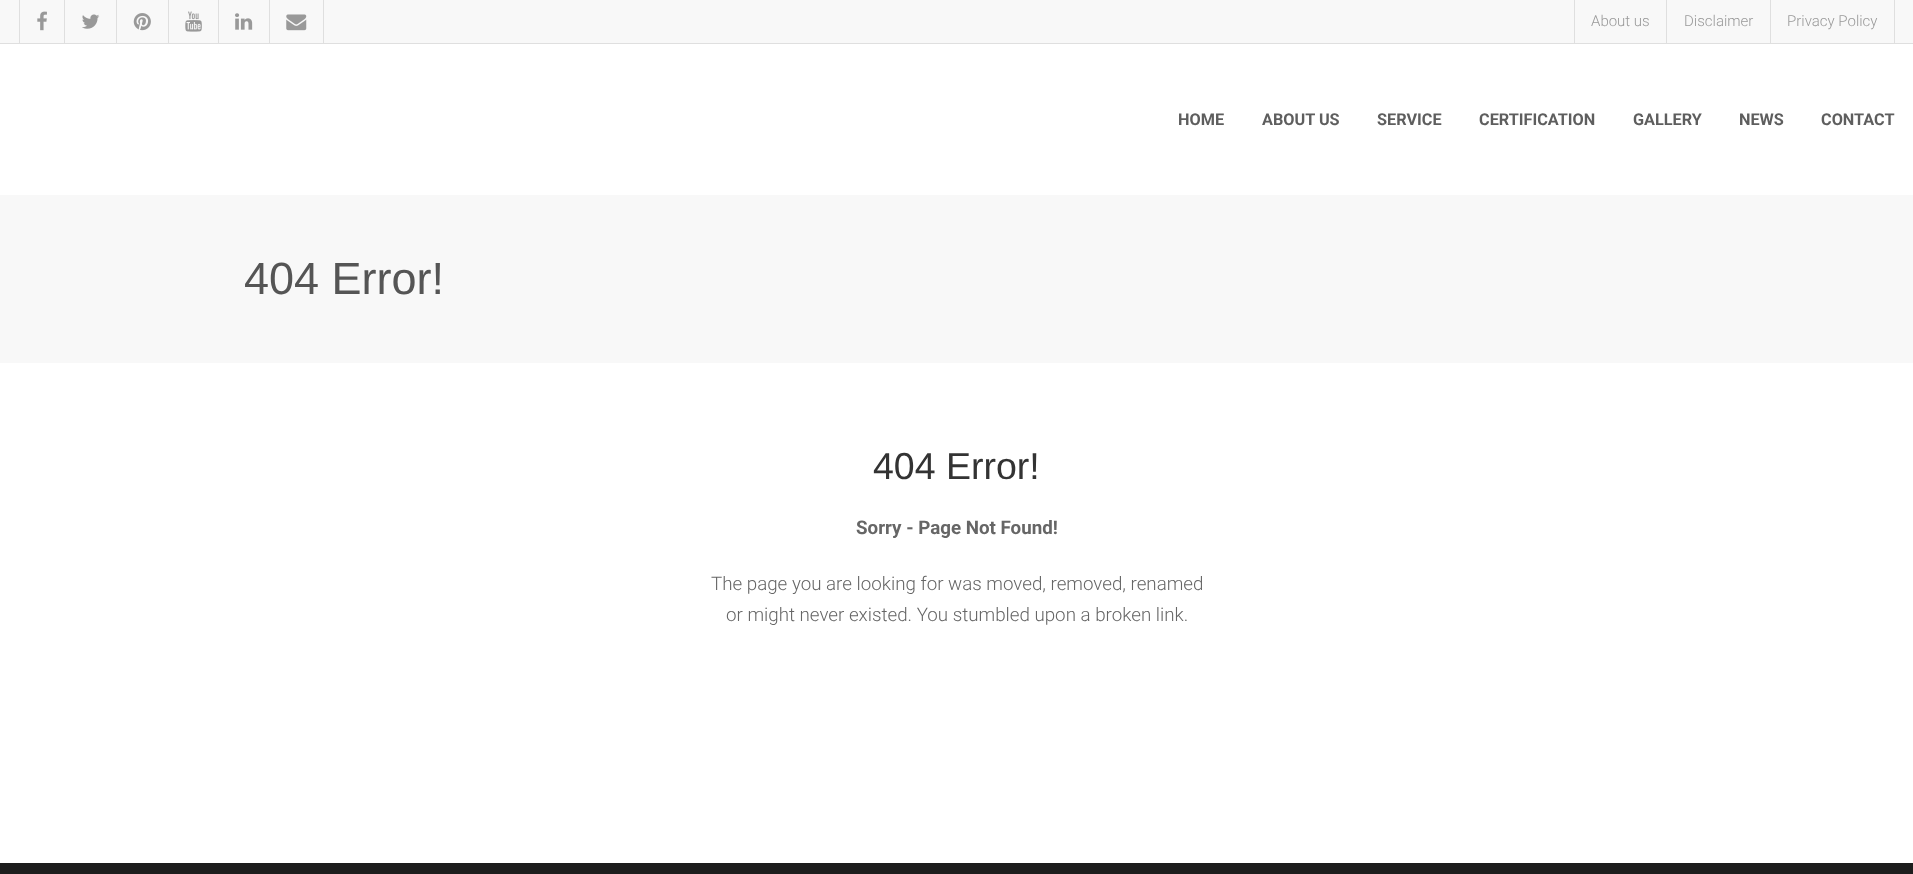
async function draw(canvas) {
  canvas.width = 1913;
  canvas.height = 874;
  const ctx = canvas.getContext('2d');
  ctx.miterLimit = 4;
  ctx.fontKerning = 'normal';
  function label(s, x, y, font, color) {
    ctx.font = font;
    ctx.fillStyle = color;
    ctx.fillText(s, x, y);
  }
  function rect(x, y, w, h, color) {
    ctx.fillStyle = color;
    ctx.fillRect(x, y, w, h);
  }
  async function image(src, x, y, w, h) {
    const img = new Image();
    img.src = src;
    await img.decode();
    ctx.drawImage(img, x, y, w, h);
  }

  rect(0, 0, 1913, 874, '#fff');
  rect(0, 0, 1913, 43, '#f8f8f8');
  rect(0, 43, 1913, 1, '#dfdfdf');
  rect(19, 0, 1, 43, '#dfdfdf');
  rect(64, 0, 1, 43, '#dfdfdf');
  await image('assets/img1.png', 37, 11, 10, 20);
  rect(116, 0, 1, 43, '#dfdfdf');
  await image('assets/img2.png', 82, 14, 18, 15);
  rect(168, 0, 1, 43, '#dfdfdf');
  await image('assets/img3.png', 133, 13, 18, 18);
  rect(218, 0, 1, 43, '#dfdfdf');
  await image('assets/img4.png', 185, 11, 17, 21);
  rect(269, 0, 1, 43, '#dfdfdf');
  await image('assets/img5.png', 235, 13, 18, 17);
  rect(323, 0, 1, 43, '#dfdfdf');
  await image('assets/img6.png', 286, 14, 21, 17);
  rect(1574, 0, 1, 43, '#dfdfdf');
  rect(1666, 0, 1, 43, '#dfdfdf');
  label('About us', 1591, 26, '300 15px Roboto', '#999');
  rect(1770, 0, 1, 43, '#dfdfdf');
  label('Disclaimer', 1684, 26, '300 15px Roboto', '#999');
  rect(1894, 0, 1, 43, '#dfdfdf');
  label('Privacy Policy', 1787, 26, '300 15px Roboto', '#999');
  label('HOME', 1178, 125, 'bold 16.25px Roboto', '#5e5e5e');
  label('ABOUT US', 1262, 125, 'bold 16.25px Roboto', '#5e5e5e');
  label('SERVICE', 1377, 125, 'bold 16.25px Roboto', '#5e5e5e');
  label('CERTIFICATION', 1479, 125, 'bold 16.25px Roboto', '#5e5e5e');
  label('GALLERY', 1633, 125, 'bold 16.25px Roboto', '#5e5e5e');
  label('NEWS', 1739, 125, 'bold 16.25px Roboto', '#5e5e5e');
  label('CONTACT', 1821, 125, 'bold 16.25px Roboto', '#5e5e5e');
  rect(0, 195, 1913, 168, '#f8f8f8');
  label('404 Error!', 244, 294, '45px Liberation Sans', '#555');
  label('404 Error!', 873, 479, '37.5px Liberation Sans', '#333');
  label('Sorry - Page Not Found!', 856, 534, 'bold 18.75px Roboto', '#666');
  label('The page you are looking for was moved, removed, renamed', 711, 590, '300 18.75px Roboto', '#666');
  label('or might never existed. You stumbled upon a broken link.', 726, 621, '300 18.75px Roboto', '#666');
  rect(0, 863, 1913, 11, '#1d1d1d');
}

draw(document.querySelector('canvas'));
